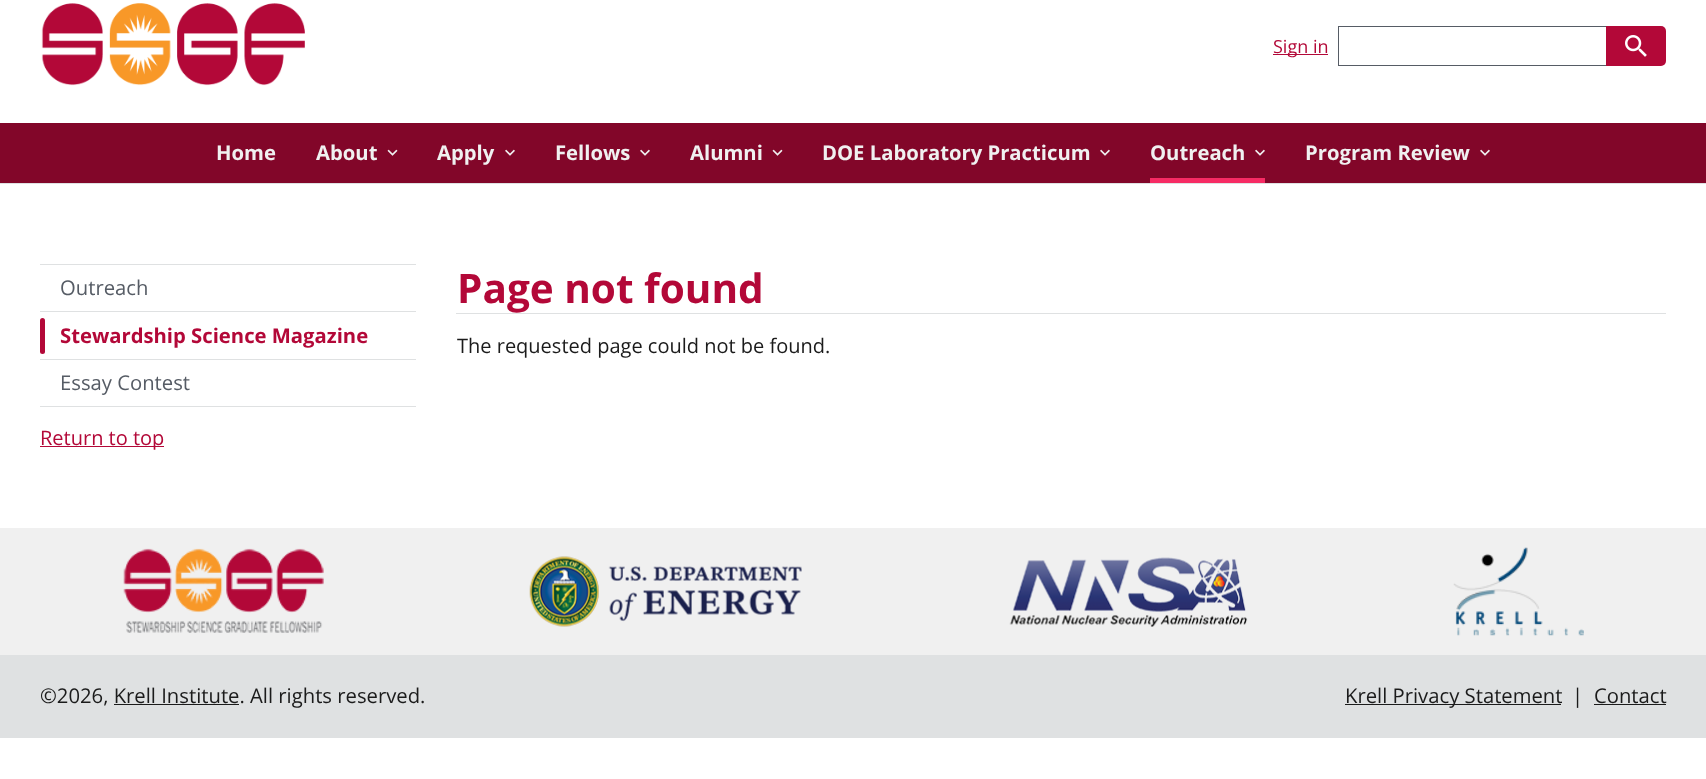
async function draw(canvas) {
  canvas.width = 1706;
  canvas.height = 779;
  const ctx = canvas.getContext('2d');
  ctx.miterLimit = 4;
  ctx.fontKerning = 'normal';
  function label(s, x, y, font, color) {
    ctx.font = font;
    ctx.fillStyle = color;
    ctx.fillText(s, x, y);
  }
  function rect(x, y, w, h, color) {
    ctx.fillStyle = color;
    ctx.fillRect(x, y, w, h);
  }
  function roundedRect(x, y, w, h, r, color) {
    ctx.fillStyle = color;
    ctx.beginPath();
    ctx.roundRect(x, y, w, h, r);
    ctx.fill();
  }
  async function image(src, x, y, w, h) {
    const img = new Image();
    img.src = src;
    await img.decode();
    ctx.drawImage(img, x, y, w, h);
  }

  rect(0, 0, 1706, 779, '#fff');
  await image('assets/img1.png', 41, 3, 264, 83);
  rect(0, 123, 1706, 60, '#820629');
  rect(1273, 54, 55, 1, '#b30838');
  label('Sign in', 1273, 53, '18px Open Sans', '#b30838');
  rect(1338, 26, 268, 1, '#565c65');
  rect(1338, 65, 268, 1, '#565c65');
  rect(1338, 26, 1, 40, '#565c65');
  ctx.fillStyle = '#b30838';
  ctx.beginPath();
  ctx.roundRect(1606, 26, 60, 40, [0, 5, 5, 0]);
  ctx.fill();
  await image('assets/img2.png', 1625, 35, 22, 22);
  label('Home', 216, 160, 'bold 20.25px Open Sans', '#f0f0f0');
  label('About', 316, 160, 'bold 20.25px Open Sans', '#f0f0f0');
  await image('assets/img3.png', 387, 149, 11, 7);
  label('Apply', 437, 160, 'bold 20.25px Open Sans', '#f0f0f0');
  await image('assets/img4.png', 505, 149, 10, 7);
  label('Fellows', 555, 160, 'bold 20.25px Open Sans', '#f0f0f0');
  await image('assets/img4.png', 640, 149, 10, 7);
  label('Alumni', 690, 160, 'bold 20.25px Open Sans', '#f0f0f0');
  await image('assets/img3.png', 772, 149, 11, 7);
  label('DOE Laboratory Practicum', 822, 160, 'bold 20.25px Open Sans', '#f0f0f0');
  await image('assets/img4.png', 1100, 149, 10, 7);
  label('Outreach', 1150, 160, 'bold 20.25px Open Sans', '#f0f0f0');
  await image('assets/img4.png', 1255, 149, 10, 7);
  rect(1150, 178, 115, 5, '#f62b64');
  label('Program Review', 1305, 160, 'bold 20.25px Open Sans', '#f0f0f0');
  await image('assets/img4.png', 1480, 149, 10, 7);
  rect(0, 183, 1706, 1, '#dfe1e2');
  rect(40, 406, 376, 1, '#dfe1e2');
  rect(40, 264, 376, 1, '#dfe1e2');
  label('Outreach', 60, 295, '20.25px Open Sans', '#565c65');
  rect(40, 311, 376, 1, '#dfe1e2');
  roundedRect(40, 318, 5, 36, 2.5, '#b30838');
  label('Stewardship Science Magazine', 60, 343, 'bold 20.25px Open Sans', '#b30838');
  rect(40, 359, 376, 1, '#dfe1e2');
  label('Essay Contest', 60, 390, '20.25px Open Sans', '#565c65');
  rect(40, 446, 124, 1, '#b30838');
  label('Return to top', 40, 445, '20px Open Sans', '#b30838');
  rect(456, 313, 1210, 1, '#dfe1e2');
  label('Page not found', 457, 303, 'bold 40.5px Open Sans', '#b30838');
  label('The requested page could not be found.', 457, 353, '20px Open Sans', '#1b1b1b');
  rect(0, 528, 1706, 127, '#f0f0f0');
  await image('assets/img5.png', 123, 548, 201, 85);
  await image('assets/img6.png', 529, 556, 273, 71);
  await image('assets/img7.png', 1009, 557, 239, 70);
  await image('assets/img8.png', 1453, 547, 131, 89);
  rect(0, 655, 1706, 83, '#dfe1e2');
  label('©2026, Krell Institute. All rights reserved.', 40, 703, '20.25px Open Sans', '#1b1b1b');
  rect(114, 704, 125, 1, '#1b1b1b');
  rect(1345, 704, 216, 1, '#1b1b1b');
  label('Krell Privacy Statement', 1345, 703, '20.25px Open Sans', '#1b1b1b');
  label('|', 1572, 703, '20.25px Open Sans', '#1b1b1b');
  label('Contact', 1594, 703, '20.25px Open Sans', '#1b1b1b');
  rect(1594, 704, 72, 1, '#1b1b1b');
}

draw(document.querySelector('canvas'));
